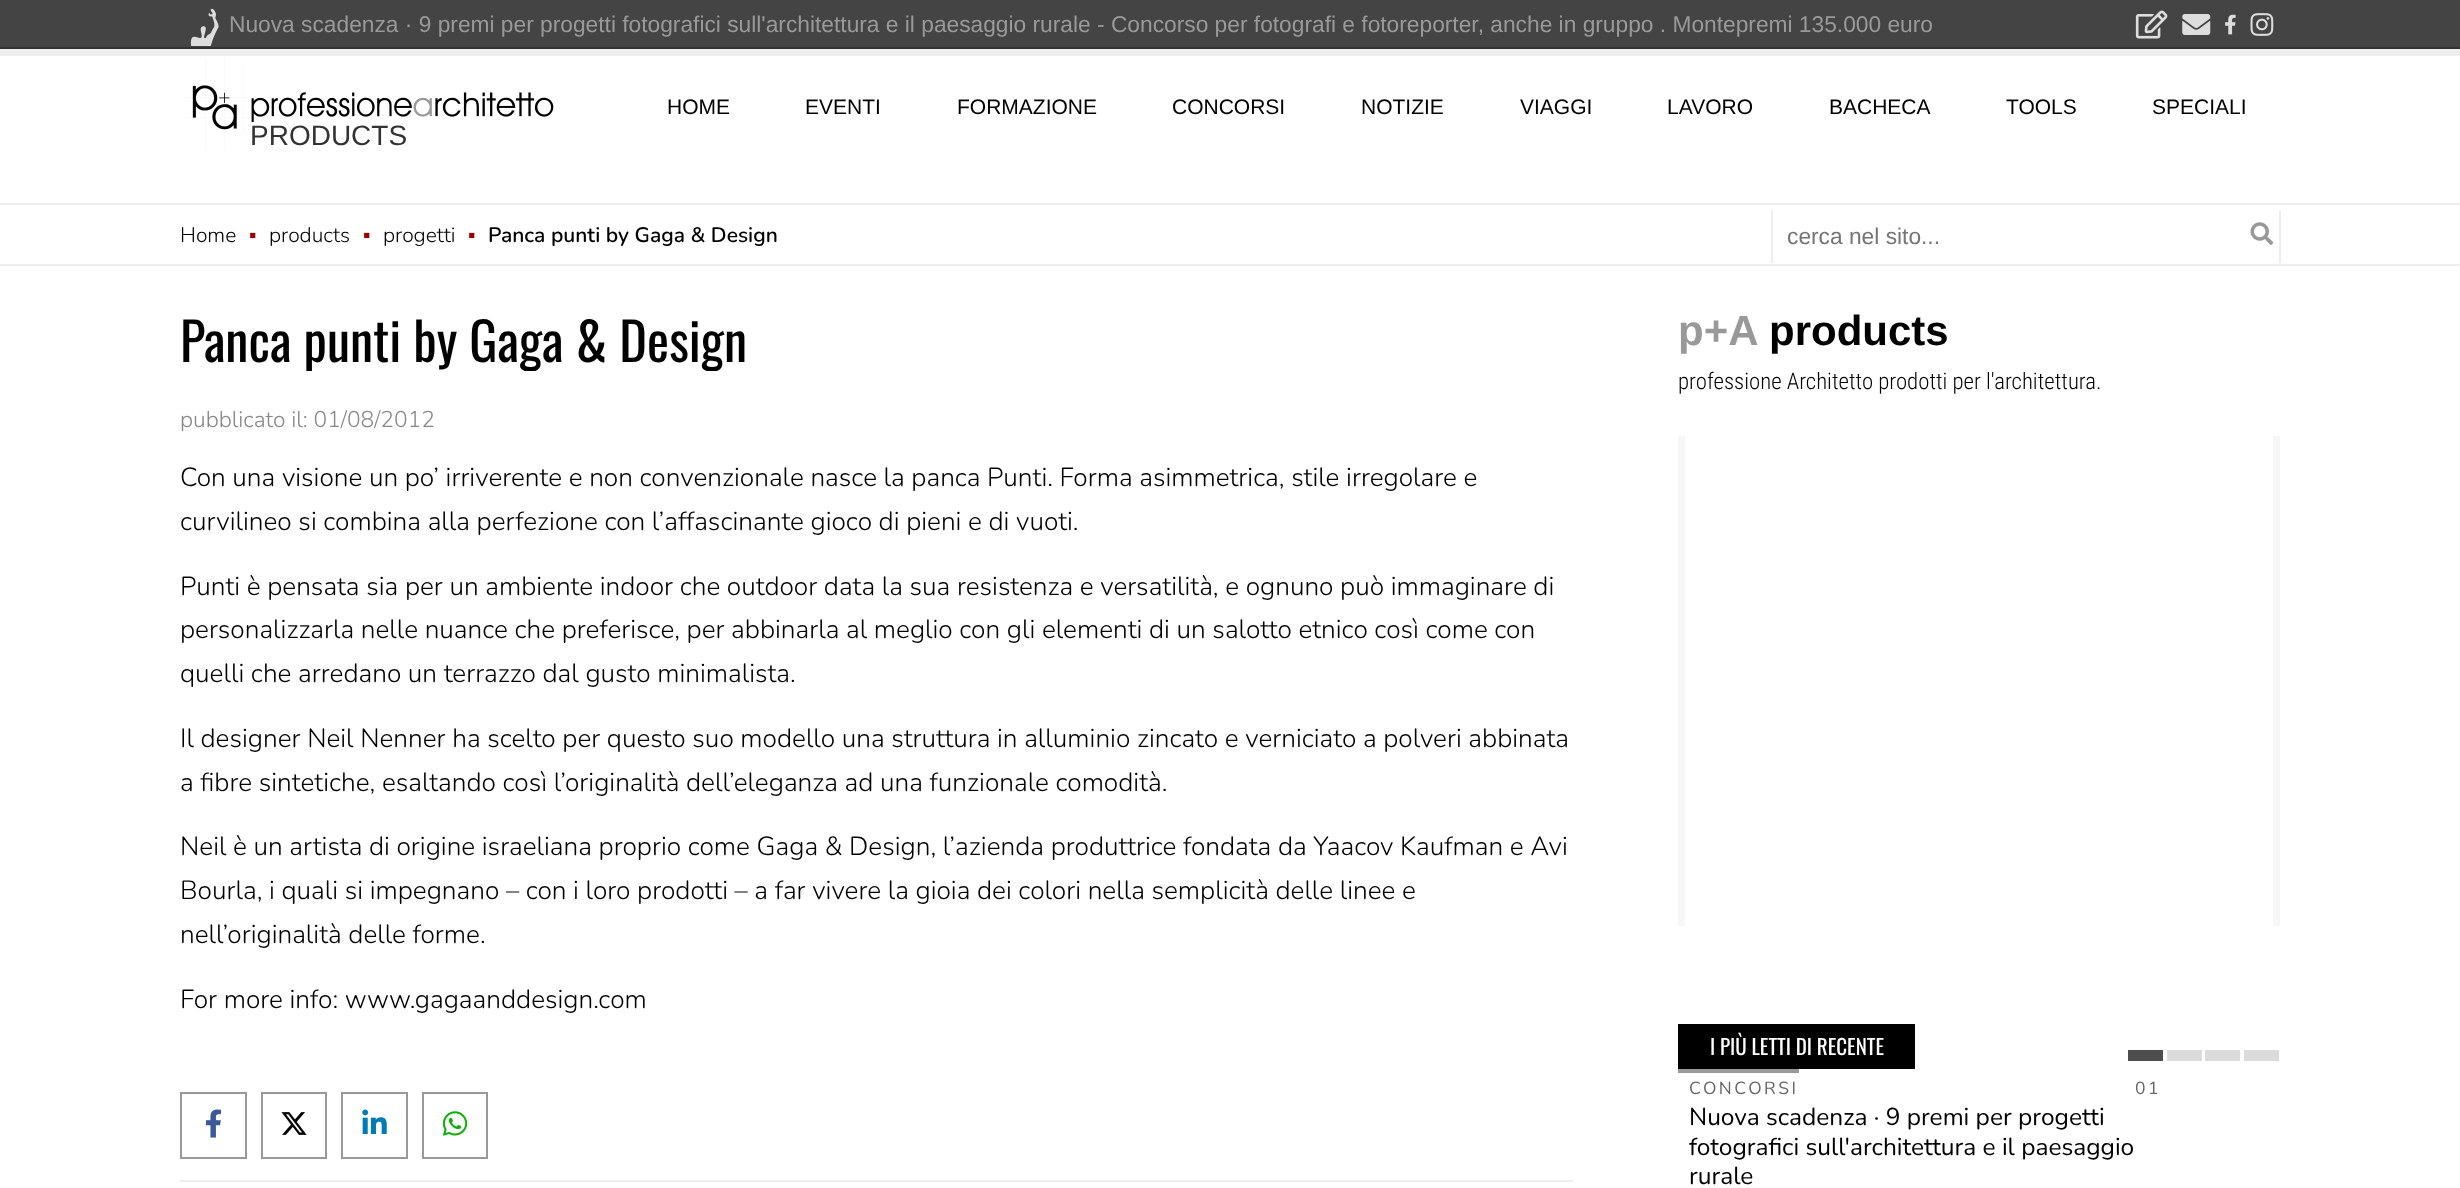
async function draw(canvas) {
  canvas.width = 2460;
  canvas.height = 1188;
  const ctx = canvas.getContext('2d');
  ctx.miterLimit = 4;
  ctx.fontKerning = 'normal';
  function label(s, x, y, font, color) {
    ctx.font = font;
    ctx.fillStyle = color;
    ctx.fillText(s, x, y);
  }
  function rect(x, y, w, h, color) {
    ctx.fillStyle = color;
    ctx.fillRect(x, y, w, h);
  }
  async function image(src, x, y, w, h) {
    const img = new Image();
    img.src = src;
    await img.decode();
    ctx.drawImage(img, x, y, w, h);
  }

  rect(0, 0, 2460, 1188, '#fff');
  rect(0, 0, 2460, 47, '#444');
  rect(0, 47, 2460, 2, '#333');
  await image('assets/img1.png', 190, 8, 29, 38);
  label('Nuova scadenza · 9 premi per progetti fotografici sull\'architettura e il paesaggio rurale - Concorso per fotografi e fotoreporter, anche in gruppo . Montepremi 135.000 euro', 229, 32, '22.75px Liberation Sans', '#999');
  await image('assets/img2.png', 2135, 10, 33, 29);
  await image('assets/img3.png', 2182, 14, 29, 21);
  await image('assets/img4.png', 2225, 14, 11, 21);
  await image('assets/img5.png', 2250, 13, 24, 23);
  rect(0, 49, 2460, 7, '#eee');
  await image('assets/img6.png', 184, 56, 370, 95);
  label('HOME', 667, 114, '21px Liberation Sans', '#000');
  label('EVENTI', 805, 114, '21px Liberation Sans', '#000');
  label('FORMAZIONE', 957, 114, '21px Liberation Sans', '#000');
  label('CONCORSI', 1172, 114, '21px Liberation Sans', '#000');
  label('NOTIZIE', 1361, 114, '21px Liberation Sans', '#000');
  label('VIAGGI', 1520, 114, '21px Liberation Sans', '#000');
  label('LAVORO', 1667, 114, '21px Liberation Sans', '#000');
  label('BACHECA', 1829, 114, '21px Liberation Sans', '#000');
  label('TOOLS', 2006, 114, '21px Liberation Sans', '#000');
  label('SPECIALI', 2152, 114, '21px Liberation Sans', '#000');
  label('PRODUCTS', 250, 145, '28px Liberation Sans', '#333');
  rect(0, 203, 2460, 2, '#eee');
  rect(0, 264, 2460, 2, '#eee');
  label('Home', 180, 242, '300 21px Nunito', '#000');
  label('▪', 249, 242, 'bold 21px Liberation Sans', '#900');
  label('products', 269, 242, '300 21px Nunito', '#000');
  label('▪', 363, 242, 'bold 21px Liberation Sans', '#900');
  label('progetti', 383, 242, '300 21px Nunito', '#000');
  label('▪', 468, 242, 'bold 21px Liberation Sans', '#900');
  label('Panca punti by Gaga & Design', 488, 242, '600 21px Nunito', '#000');
  rect(2279, 210, 2, 53, '#eee');
  rect(1771, 210, 2, 53, '#eee');
  label('cerca nel sito...', 1787, 244, '22.75px Liberation Sans', '#757575');
  await image('assets/img7.png', 2250, 222, 24, 23);
  ctx.save();
  ctx.beginPath();
  ctx.rect(180, 308, 1393, 63);
  ctx.clip();
  label('Panca punti by Gaga & Design', 180, 362, '52.5px Oswald', '#000');
  ctx.restore();
  label('pubblicato il: 01/08/2012', 180, 427, '300 22.75px Nunito', '#888');
  label('Con una visione un po’ irriverente e non convenzionale nasce la panca Punti. Forma asimmetrica, stile irregolare e', 180, 486, '300 26.25px Nunito', '#000');
  label('curvilineo si combina alla perfezione con l’affascinante gioco di pieni e di vuoti.', 180, 530, '300 26.25px Nunito', '#000');
  label('Punti è pensata sia per un ambiente indoor che outdoor data la sua resistenza e versatilità, e ognuno può immaginare di', 180, 595, '300 26.25px Nunito', '#000');
  label('personalizzarla nelle nuance che preferisce, per abbinarla al meglio con gli elementi di un salotto etnico così come con', 180, 638, '300 26.25px Nunito', '#000');
  label('quelli che arredano un terrazzo dal gusto minimalista.', 180, 682, '300 26.25px Nunito', '#000');
  label('Il designer Neil Nenner ha scelto per questo suo modello una struttura in alluminio zincato e verniciato a polveri abbinata', 180, 747, '300 26.25px Nunito', '#000');
  label('a fibre sintetiche, esaltando così l’originalità dell’eleganza ad una funzionale comodità.', 180, 791, '300 26.25px Nunito', '#000');
  label('Neil è un artista di origine israeliana proprio come Gaga & Design, l’azienda produttrice fondata da Yaacov Kaufman e Avi', 180, 855, '300 26.25px Nunito', '#000');
  label('Bourla, i quali si impegnano – con i loro prodotti – a far vivere la gioia dei colori nella semplicità delle linee e', 180, 899, '300 26.25px Nunito', '#000');
  label('nell’originalità delle forme.', 180, 943, '300 26.25px Nunito', '#000');
  label('For more info: www.gagaanddesign.com', 180, 1008, '300 26.25px Nunito', '#000');
  ctx.strokeStyle = '#999';
  ctx.lineWidth = 2;
  ctx.strokeRect(181, 1093, 65, 65);
  await image('assets/img8.png', 206, 1109, 15, 29);
  ctx.strokeRect(262, 1093, 64, 65);
  await image('assets/img9.png', 281, 1112, 26, 23);
  ctx.strokeRect(342, 1093, 65, 65);
  await image('assets/img10.png', 362, 1109, 25, 25);
  ctx.strokeRect(423, 1093, 64, 65);
  await image('assets/img11.png', 442, 1111, 26, 25);
  rect(180, 1180, 1393, 2, '#eee');
  label('p+A', 1678, 345, 'bold 42px Liberation Sans', '#999');
  label('products', 1769, 345, 'bold 42px Liberation Sans', '#000');
  label('professione Architetto prodotti per l\'architettura.', 1678, 389, '300 22.75px Roboto Condensed', '#000');
  rect(2273, 436, 7, 490, '#f7f7f7');
  rect(1678, 436, 7, 490, '#f7f7f7');
  rect(1678, 1024, 237, 45, '#000');
  label('I PIÙ LETTI DI RECENTE', 1710, 1055, '21px Oswald', '#fff');
  rect(2128, 1050, 35, 11, '#4d4d4d');
  rect(2167, 1050, 35, 11, '#dbdbdb');
  rect(2205, 1050, 35, 11, '#dbdbdb');
  rect(2244, 1050, 35, 11, '#dbdbdb');
  rect(1678, 1069, 121, 4, '#999');
  ctx.letterSpacing = '2.5px';
  label('CONCORSI', 1689, 1094, '17.5px Nunito', '#666');
  label('01', 2135, 1094, '17.5px Nunito', '#666');
  ctx.letterSpacing = '0px';
  label('Nuova scadenza · 9 premi per progetti', 1689, 1125, '24.5px Nunito', '#000');
  label('fotografici sull\'architettura e il paesaggio', 1689, 1155, '24.5px Nunito', '#000');
  label('rurale', 1689, 1184, '24.5px Nunito', '#000');
}

draw(document.querySelector('canvas'));
